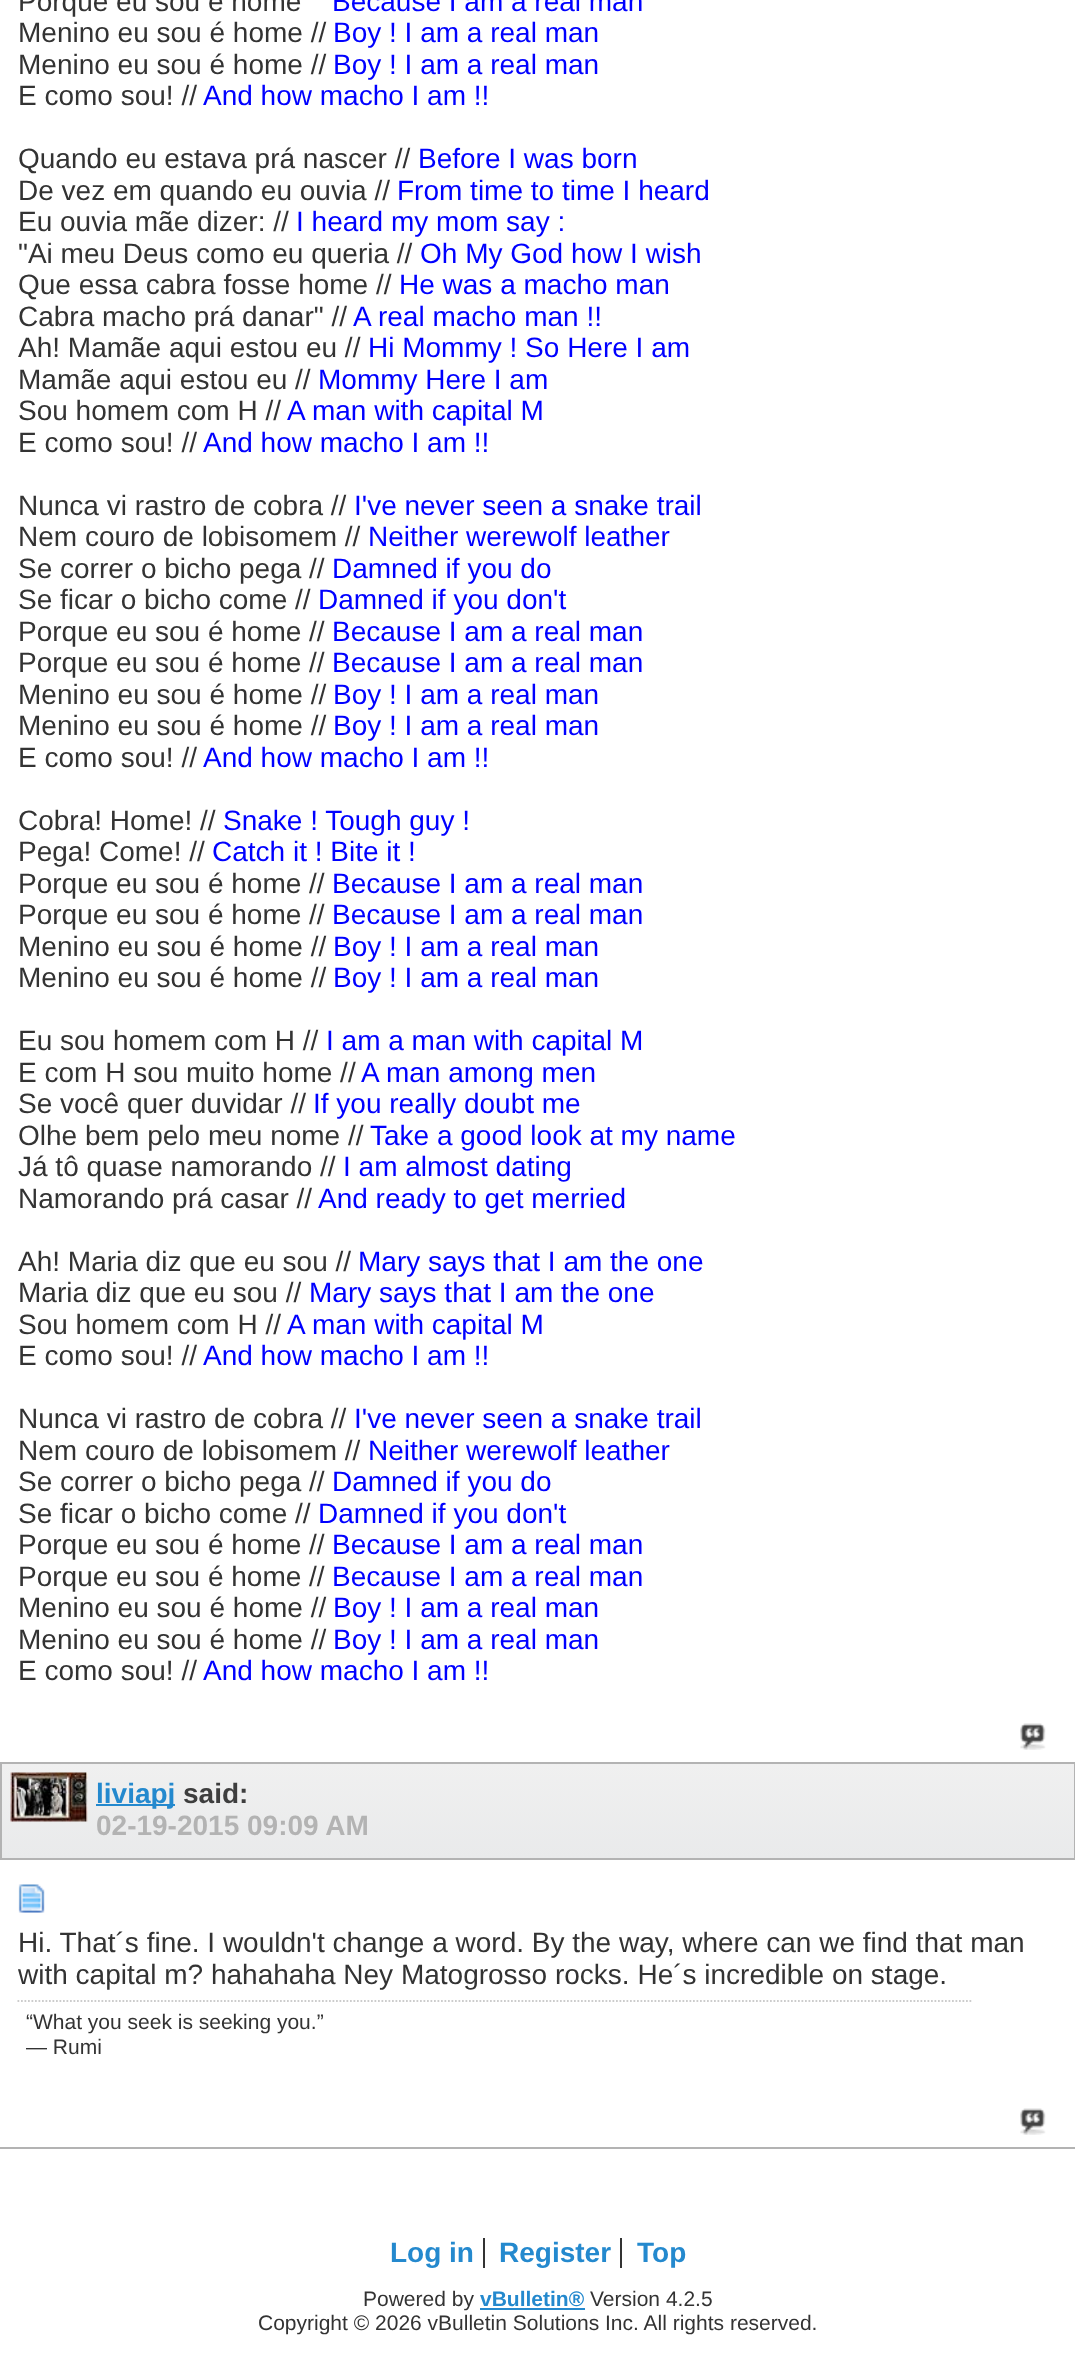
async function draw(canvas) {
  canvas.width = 1075;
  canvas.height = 2353;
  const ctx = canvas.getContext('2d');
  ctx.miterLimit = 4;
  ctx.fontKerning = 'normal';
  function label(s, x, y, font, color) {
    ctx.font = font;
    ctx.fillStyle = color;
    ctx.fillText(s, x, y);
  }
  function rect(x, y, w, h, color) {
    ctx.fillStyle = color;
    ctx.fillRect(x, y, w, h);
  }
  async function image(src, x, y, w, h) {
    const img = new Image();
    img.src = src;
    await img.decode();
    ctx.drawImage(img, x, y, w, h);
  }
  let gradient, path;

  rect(0, 0, 1075, 2353, '#fff');
  rect(0, 2147, 1075, 2, '#b3b3b3');
  label('Porque eu sou é home', 18, 11, '28px Liberation Sans', '#333');
  label('Because I am a real man', 332, 11, '28px Liberation Sans', '#00f');
  label('Menino eu sou é home //', 18, 42, '28px Liberation Sans', '#333');
  label('Boy ! I am a real man', 333, 42, '28px Liberation Sans', '#00f');
  label('Menino eu sou é home //', 18, 74, '28px Liberation Sans', '#333');
  label('Boy ! I am a real man', 333, 74, '28px Liberation Sans', '#00f');
  label('E como sou! //', 18, 105, '28px Liberation Sans', '#333');
  label('And how macho I am !!', 203, 105, '28px Liberation Sans', '#00f');
  label('Quando eu estava prá nascer //', 18, 168, '28px Liberation Sans', '#333');
  label('Before I was born', 418, 168, '28px Liberation Sans', '#00f');
  label('De vez em quando eu ouvia //', 18, 200, '28px Liberation Sans', '#333');
  label('From time to time I heard', 397, 200, '28px Liberation Sans', '#00f');
  label('Eu ouvia mãe dizer: //', 18, 231, '28px Liberation Sans', '#333');
  label('I heard my mom say :', 296, 231, '28px Liberation Sans', '#00f');
  label('"Ai meu Deus como eu queria //', 18, 263, '28px Liberation Sans', '#333');
  label('Oh My God how I wish', 420, 263, '28px Liberation Sans', '#00f');
  label('Que essa cabra fosse home //', 18, 294, '28px Liberation Sans', '#333');
  label('He was a macho man', 399, 294, '28px Liberation Sans', '#00f');
  label('Cabra macho prá danar" //', 18, 326, '28px Liberation Sans', '#333');
  label('A real macho man !!', 353, 326, '28px Liberation Sans', '#00f');
  label('Ah! Mamãe aqui estou eu //', 18, 357, '28px Liberation Sans', '#333');
  label('Hi Mommy ! So Here I am', 368, 357, '28px Liberation Sans', '#00f');
  label('Mamãe aqui estou eu //', 18, 389, '28px Liberation Sans', '#333');
  label('Mommy Here I am', 318, 389, '28px Liberation Sans', '#00f');
  label('Sou homem com H //', 18, 420, '28px Liberation Sans', '#333');
  label('A man with capital M', 287, 420, '28px Liberation Sans', '#00f');
  label('E como sou! //', 18, 452, '28px Liberation Sans', '#333');
  label('And how macho I am !!', 203, 452, '28px Liberation Sans', '#00f');
  label('Nunca vi rastro de cobra //', 18, 515, '28px Liberation Sans', '#333');
  label('I\'ve never seen a snake trail', 354, 515, '28px Liberation Sans', '#00f');
  label('Nem couro de lobisomem //', 18, 546, '28px Liberation Sans', '#333');
  label('Neither werewolf leather', 368, 546, '28px Liberation Sans', '#00f');
  label('Se correr o bicho pega //', 18, 578, '28px Liberation Sans', '#333');
  label('Damned if you do', 332, 578, '28px Liberation Sans', '#00f');
  label('Se ficar o bicho come //', 18, 609, '28px Liberation Sans', '#333');
  label('Damned if you don\'t', 318, 609, '28px Liberation Sans', '#00f');
  label('Porque eu sou é home //', 18, 641, '28px Liberation Sans', '#333');
  label('Because I am a real man', 332, 641, '28px Liberation Sans', '#00f');
  label('Porque eu sou é home //', 18, 672, '28px Liberation Sans', '#333');
  label('Because I am a real man', 332, 672, '28px Liberation Sans', '#00f');
  label('Menino eu sou é home //', 18, 704, '28px Liberation Sans', '#333');
  label('Boy ! I am a real man', 333, 704, '28px Liberation Sans', '#00f');
  label('Menino eu sou é home //', 18, 735, '28px Liberation Sans', '#333');
  label('Boy ! I am a real man', 333, 735, '28px Liberation Sans', '#00f');
  label('E como sou! //', 18, 767, '28px Liberation Sans', '#333');
  label('And how macho I am !!', 203, 767, '28px Liberation Sans', '#00f');
  label('Cobra! Home! //', 18, 830, '28px Liberation Sans', '#333');
  label('Snake ! Tough guy !', 223, 830, '28px Liberation Sans', '#00f');
  label('Pega! Come! //', 18, 861, '28px Liberation Sans', '#333');
  label('Catch it ! Bite it !', 212, 861, '28px Liberation Sans', '#00f');
  label('Porque eu sou é home //', 18, 893, '28px Liberation Sans', '#333');
  label('Because I am a real man', 332, 893, '28px Liberation Sans', '#00f');
  label('Porque eu sou é home //', 18, 924, '28px Liberation Sans', '#333');
  label('Because I am a real man', 332, 924, '28px Liberation Sans', '#00f');
  label('Menino eu sou é home //', 18, 956, '28px Liberation Sans', '#333');
  label('Boy ! I am a real man', 333, 956, '28px Liberation Sans', '#00f');
  label('Menino eu sou é home //', 18, 987, '28px Liberation Sans', '#333');
  label('Boy ! I am a real man', 333, 987, '28px Liberation Sans', '#00f');
  label('Eu sou homem com H //', 18, 1050, '28px Liberation Sans', '#333');
  label('I am a man with capital M', 326, 1050, '28px Liberation Sans', '#00f');
  label('E com H sou muito home //', 18, 1082, '28px Liberation Sans', '#333');
  label('A man among men', 361, 1082, '28px Liberation Sans', '#00f');
  label('Se você quer duvidar //', 18, 1113, '28px Liberation Sans', '#333');
  label('If you really doubt me', 313, 1113, '28px Liberation Sans', '#00f');
  label('Olhe bem pelo meu nome //', 18, 1145, '28px Liberation Sans', '#333');
  label('Take a good look at my name', 370, 1145, '28px Liberation Sans', '#00f');
  label('Já tô quase namorando //', 18, 1176, '28px Liberation Sans', '#333');
  label('I am almost dating', 343, 1176, '28px Liberation Sans', '#00f');
  label('Namorando prá casar //', 18, 1208, '28px Liberation Sans', '#333');
  label('And ready to get merried', 318, 1208, '28px Liberation Sans', '#00f');
  label('Ah! Maria diz que eu sou //', 18, 1271, '28px Liberation Sans', '#333');
  label('Mary says that I am the one', 358, 1271, '28px Liberation Sans', '#00f');
  label('Maria diz que eu sou //', 18, 1302, '28px Liberation Sans', '#333');
  label('Mary says that I am the one', 309, 1302, '28px Liberation Sans', '#00f');
  label('Sou homem com H //', 18, 1334, '28px Liberation Sans', '#333');
  label('A man with capital M', 287, 1334, '28px Liberation Sans', '#00f');
  label('E como sou! //', 18, 1365, '28px Liberation Sans', '#333');
  label('And how macho I am !!', 203, 1365, '28px Liberation Sans', '#00f');
  label('Nunca vi rastro de cobra //', 18, 1428, '28px Liberation Sans', '#333');
  label('I\'ve never seen a snake trail', 354, 1428, '28px Liberation Sans', '#00f');
  label('Nem couro de lobisomem //', 18, 1460, '28px Liberation Sans', '#333');
  label('Neither werewolf leather', 368, 1460, '28px Liberation Sans', '#00f');
  label('Se correr o bicho pega //', 18, 1491, '28px Liberation Sans', '#333');
  label('Damned if you do', 332, 1491, '28px Liberation Sans', '#00f');
  label('Se ficar o bicho come //', 18, 1523, '28px Liberation Sans', '#333');
  label('Damned if you don\'t', 318, 1523, '28px Liberation Sans', '#00f');
  label('Porque eu sou é home //', 18, 1554, '28px Liberation Sans', '#333');
  label('Because I am a real man', 332, 1554, '28px Liberation Sans', '#00f');
  label('Porque eu sou é home //', 18, 1586, '28px Liberation Sans', '#333');
  label('Because I am a real man', 332, 1586, '28px Liberation Sans', '#00f');
  label('Menino eu sou é home //', 18, 1617, '28px Liberation Sans', '#333');
  label('Boy ! I am a real man', 333, 1617, '28px Liberation Sans', '#00f');
  label('Menino eu sou é home //', 18, 1649, '28px Liberation Sans', '#333');
  label('Boy ! I am a real man', 333, 1649, '28px Liberation Sans', '#00f');
  label('E como sou! //', 18, 1680, '28px Liberation Sans', '#333');
  label('And how macho I am !!', 203, 1680, '28px Liberation Sans', '#00f');
  await image('assets/img1.png', 1020, 1723, 26, 27);
  gradient = ctx.createLinearGradient(538, 1764, 538, 1859);
  gradient.addColorStop(0, '#f0f0f0');
  gradient.addColorStop(1, '#e9eaeb');
  ctx.fillStyle = gradient;
  ctx.fillRect(2, 1764, 1072, 94);
  ctx.strokeStyle = '#b3b3b3';
  ctx.lineWidth = 2;
  ctx.strokeRect(1, 1763, 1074, 96);
  await image('assets/img2.png', 10, 1772, 78, 50);
  rect(96, 1804, 79, 2, '#2489ce');
  label('liviapj', 96, 1803, 'bold 28px Liberation Sans', '#2489ce');
  label('said:', 183, 1803, 'bold 28px Liberation Sans', '#3e3e3e');
  label('02-19-2015 09:09 AM', 96, 1835, 'bold 28px Liberation Sans', '#b3b3b3');
  await image('assets/img3.png', 18, 1884, 27, 29);
  label('Hi. That´s fine. I wouldn\'t change a word. By the way, where can we find that man', 18, 1952, '28px Liberation Sans', '#333');
  label('with capital m? hahahaha Ney Matogrosso rocks. He´s incredible on stage.', 18, 1984, '28px Liberation Sans', '#333');
  path = new Path2D('M17.5 2001H973');
  ctx.strokeStyle = '#ccc';
  ctx.lineWidth = 1.8;
  ctx.setLineDash([1.75, 1.75]);
  ctx.stroke(path);
  label('“What you seek is seeking you.”', 26, 2029, '21px Liberation Sans', '#333');
  label('― Rumi', 26, 2054, '21px Liberation Sans', '#333');
  await image('assets/img1.png', 1020, 2108, 26, 27);
  label('Log in', 390, 2262, 'bold 28px Liberation Sans', '#2489ce');
  rect(483, 2238, 2, 30, '#333');
  label('Register', 499, 2262, 'bold 28px Liberation Sans', '#2489ce');
  rect(620, 2238, 2, 30, '#333');
  label('Top', 637, 2262, 'bold 28px Liberation Sans', '#2489ce');
  label('Powered by', 363, 2306, '21px Liberation Sans', '#333');
  label('vBulletin®', 480, 2306, 'bold 21px Liberation Sans', '#2489ce');
  rect(480, 2308, 105, 2, '#2489ce');
  label('Version 4.2.5', 590, 2306, '21px Liberation Sans', '#333');
  label('Copyright © 2026 vBulletin Solutions Inc. All rights reserved.', 258, 2330, '21px Liberation Sans', '#333');
}

draw(document.querySelector('canvas'));
